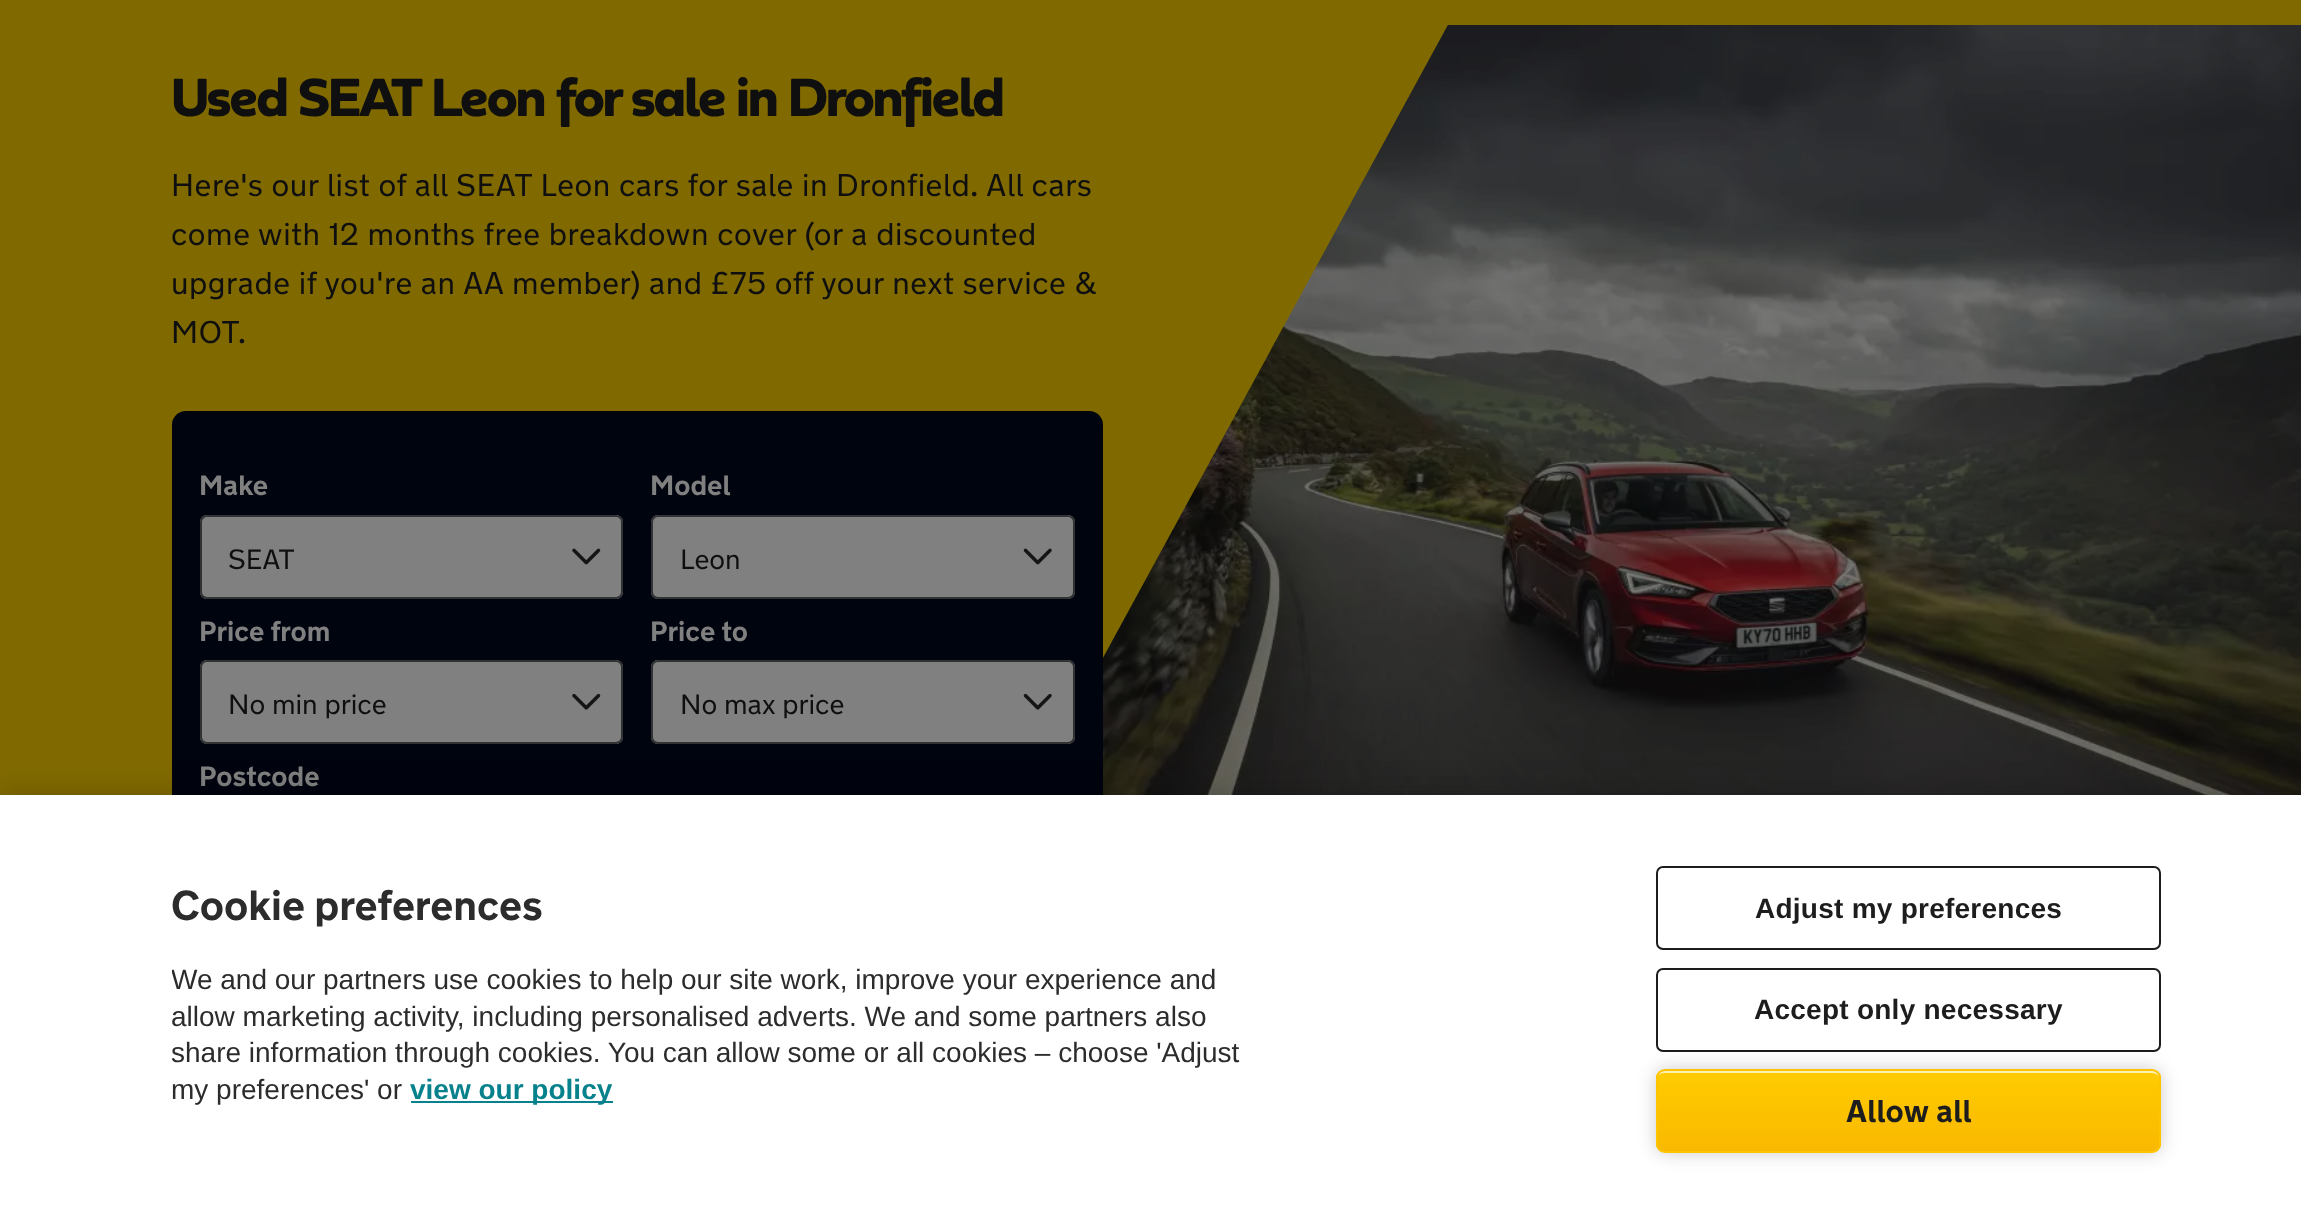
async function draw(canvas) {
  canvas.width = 2301;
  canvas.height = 1212;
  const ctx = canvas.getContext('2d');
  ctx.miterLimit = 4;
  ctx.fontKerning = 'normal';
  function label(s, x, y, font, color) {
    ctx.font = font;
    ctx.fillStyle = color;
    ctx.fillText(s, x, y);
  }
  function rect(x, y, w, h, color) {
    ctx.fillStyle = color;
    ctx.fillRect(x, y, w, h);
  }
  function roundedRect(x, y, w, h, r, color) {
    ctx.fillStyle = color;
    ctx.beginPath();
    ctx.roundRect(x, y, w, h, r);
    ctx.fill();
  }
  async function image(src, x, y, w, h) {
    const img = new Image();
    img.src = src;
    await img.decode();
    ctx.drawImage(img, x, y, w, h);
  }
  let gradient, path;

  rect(0, 0, 2301, 1212, '#806a00');
  ctx.letterSpacing = '-2.2px';
  label('Used SEAT Leon for sale in Dronfield', 171, 116, 'bold 56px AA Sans', '#0f0f0f');
  ctx.letterSpacing = '0.53px';
  label('Here\'s our list of all SEAT Leon cars for sale in Dronfield. All cars', 171, 196, '31.5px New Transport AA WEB', '#0f0f0f');
  label('come with 12 months free breakdown cover (or a discounted', 171, 245, '31.5px New Transport AA WEB', '#0f0f0f');
  label('upgrade if you\'re an AA member) and £75 off your next service &', 171, 294, '31.5px New Transport AA WEB', '#0f0f0f');
  label('MOT.', 171, 343, '31.5px New Transport AA WEB', '#0f0f0f');
  roundedRect(172, 411, 931, 641, 14, '#00040e');
  ctx.letterSpacing = '0px';
  label('Make', 199, 495, 'bold 28px New Transport AA WEB', '#808080');
  roundedRect(200, 515, 423, 84, 7, '#808080');
  await image('assets/img1.png', 572, 548, 29, 17);
  ctx.beginPath();
  ctx.roundRect(201, 516, 421, 82, 6);
  ctx.strokeStyle = '#313233';
  ctx.lineWidth = 2;
  ctx.stroke();
  label('SEAT', 228, 569, '28px New Transport AA WEB', '#0f0f0f');
  label('Model', 650, 495, 'bold 28px New Transport AA WEB', '#808080');
  roundedRect(651, 515, 424, 84, 7, '#808080');
  await image('assets/img2.png', 1023, 548, 29, 17);
  ctx.beginPath();
  ctx.roundRect(652, 516, 422, 82, 6);
  ctx.stroke();
  label('Leon', 680, 569, '28px New Transport AA WEB', '#0f0f0f');
  label('Price from', 199, 641, 'bold 28px New Transport AA WEB', '#808080');
  roundedRect(200, 660, 423, 84, 7, '#808080');
  await image('assets/img3.png', 572, 693, 29, 17);
  ctx.beginPath();
  ctx.roundRect(201, 661, 421, 82, 6);
  ctx.stroke();
  label('No min price', 228, 714, '28px New Transport AA WEB', '#0f0f0f');
  label('Price to', 650, 641, 'bold 28px New Transport AA WEB', '#808080');
  roundedRect(651, 660, 424, 84, 7, '#808080');
  await image('assets/img4.png', 1023, 693, 29, 17);
  ctx.beginPath();
  ctx.roundRect(652, 661, 422, 82, 6);
  ctx.stroke();
  label('No max price', 680, 714, '28px New Transport AA WEB', '#0f0f0f');
  label('Postcode', 199, 786, 'bold 28px New Transport AA WEB', '#808080');
  await image('assets/img5.png', 1103, 25, 1198, 770);
  ctx.fillStyle = '#00000033';
  ctx.filter = 'blur(16px)';
  ctx.beginPath();
  ctx.rect(0, 795, 2301, 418);
  ctx.fill();
  ctx.filter = 'none';
  rect(0, 795, 2301, 417, '#fff');
  label('Cookie preferences', 171, 920, 'bold 42px New Transport AA WEB', '#2c2c2c');
  ctx.save();
  ctx.beginPath();
  ctx.rect(172, 879, 1083, 229);
  ctx.clip();
  label('We and our partners use cookies to help our site work, improve your experience and', 171, 989, '28px Liberation Sans', '#2c2c2c');
  ctx.restore();
  label('allow marketing activity, including personalised adverts. We and some partners also', 171, 1026, '28px Liberation Sans', '#2c2c2c');
  label('share information through cookies. You can allow some or all cookies – choose \'Adjust', 171, 1062, '28px Liberation Sans', '#2c2c2c');
  label('my preferences\' or', 171, 1099, '28px Liberation Sans', '#2c2c2c');
  rect(411, 1101, 202, 2, '#07818c');
  label('view our policy', 410, 1099, 'bold 28px Liberation Sans', '#07818c');
  ctx.beginPath();
  ctx.roundRect(1657, 867, 503, 82, 6);
  ctx.strokeStyle = '#1d1d1d';
  ctx.stroke();
  ctx.letterSpacing = '0.25px';
  label('Adjust my preferences', 1755, 918, 'bold 28px Liberation Sans', '#1d1d1d');
  ctx.beginPath();
  ctx.roundRect(1657, 969, 503, 82, 6);
  ctx.stroke();
  label('Accept only necessary', 1754, 1019, 'bold 28px Liberation Sans', '#1d1d1d');
  ctx.fillStyle = '#00000033';
  ctx.filter = 'blur(9px)';
  ctx.beginPath();
  ctx.roundRect(1656, 1069, 505, 84, 9);
  ctx.fill();
  ctx.filter = 'none';
  ctx.save();
  ctx.beginPath();
  ctx.roundRect(1656, 1069, 505, 84, 9);
  ctx.clip();
  gradient = ctx.createLinearGradient(1908, 1071, 1908, 1152);
  gradient.addColorStop(0, '#fc0');
  gradient.addColorStop(1, '#f9b800');
  ctx.fillStyle = gradient;
  ctx.fillRect(1656, 1071, 505, 81);
  ctx.restore();
  ctx.fillStyle = '#fff0b3';
  path = new Path2D('M1664 1073H2152C2156 1073 2160 1076 2160 1080C2160 1076 2158 1071 2153 1071H1664C1659 1071 1657 1076 1657 1080C1657 1076 1660 1073 1664 1073Z');
  ctx.fill(path);
  ctx.beginPath();
  ctx.roundRect(1657, 1070, 503, 82, 8);
  ctx.strokeStyle = '#ffc400';
  ctx.stroke();
  label('Allow all', 1846, 1122, 'bold 31.5px New Transport AA WEB', '#1d1d1d');
}

draw(document.querySelector('canvas'));
